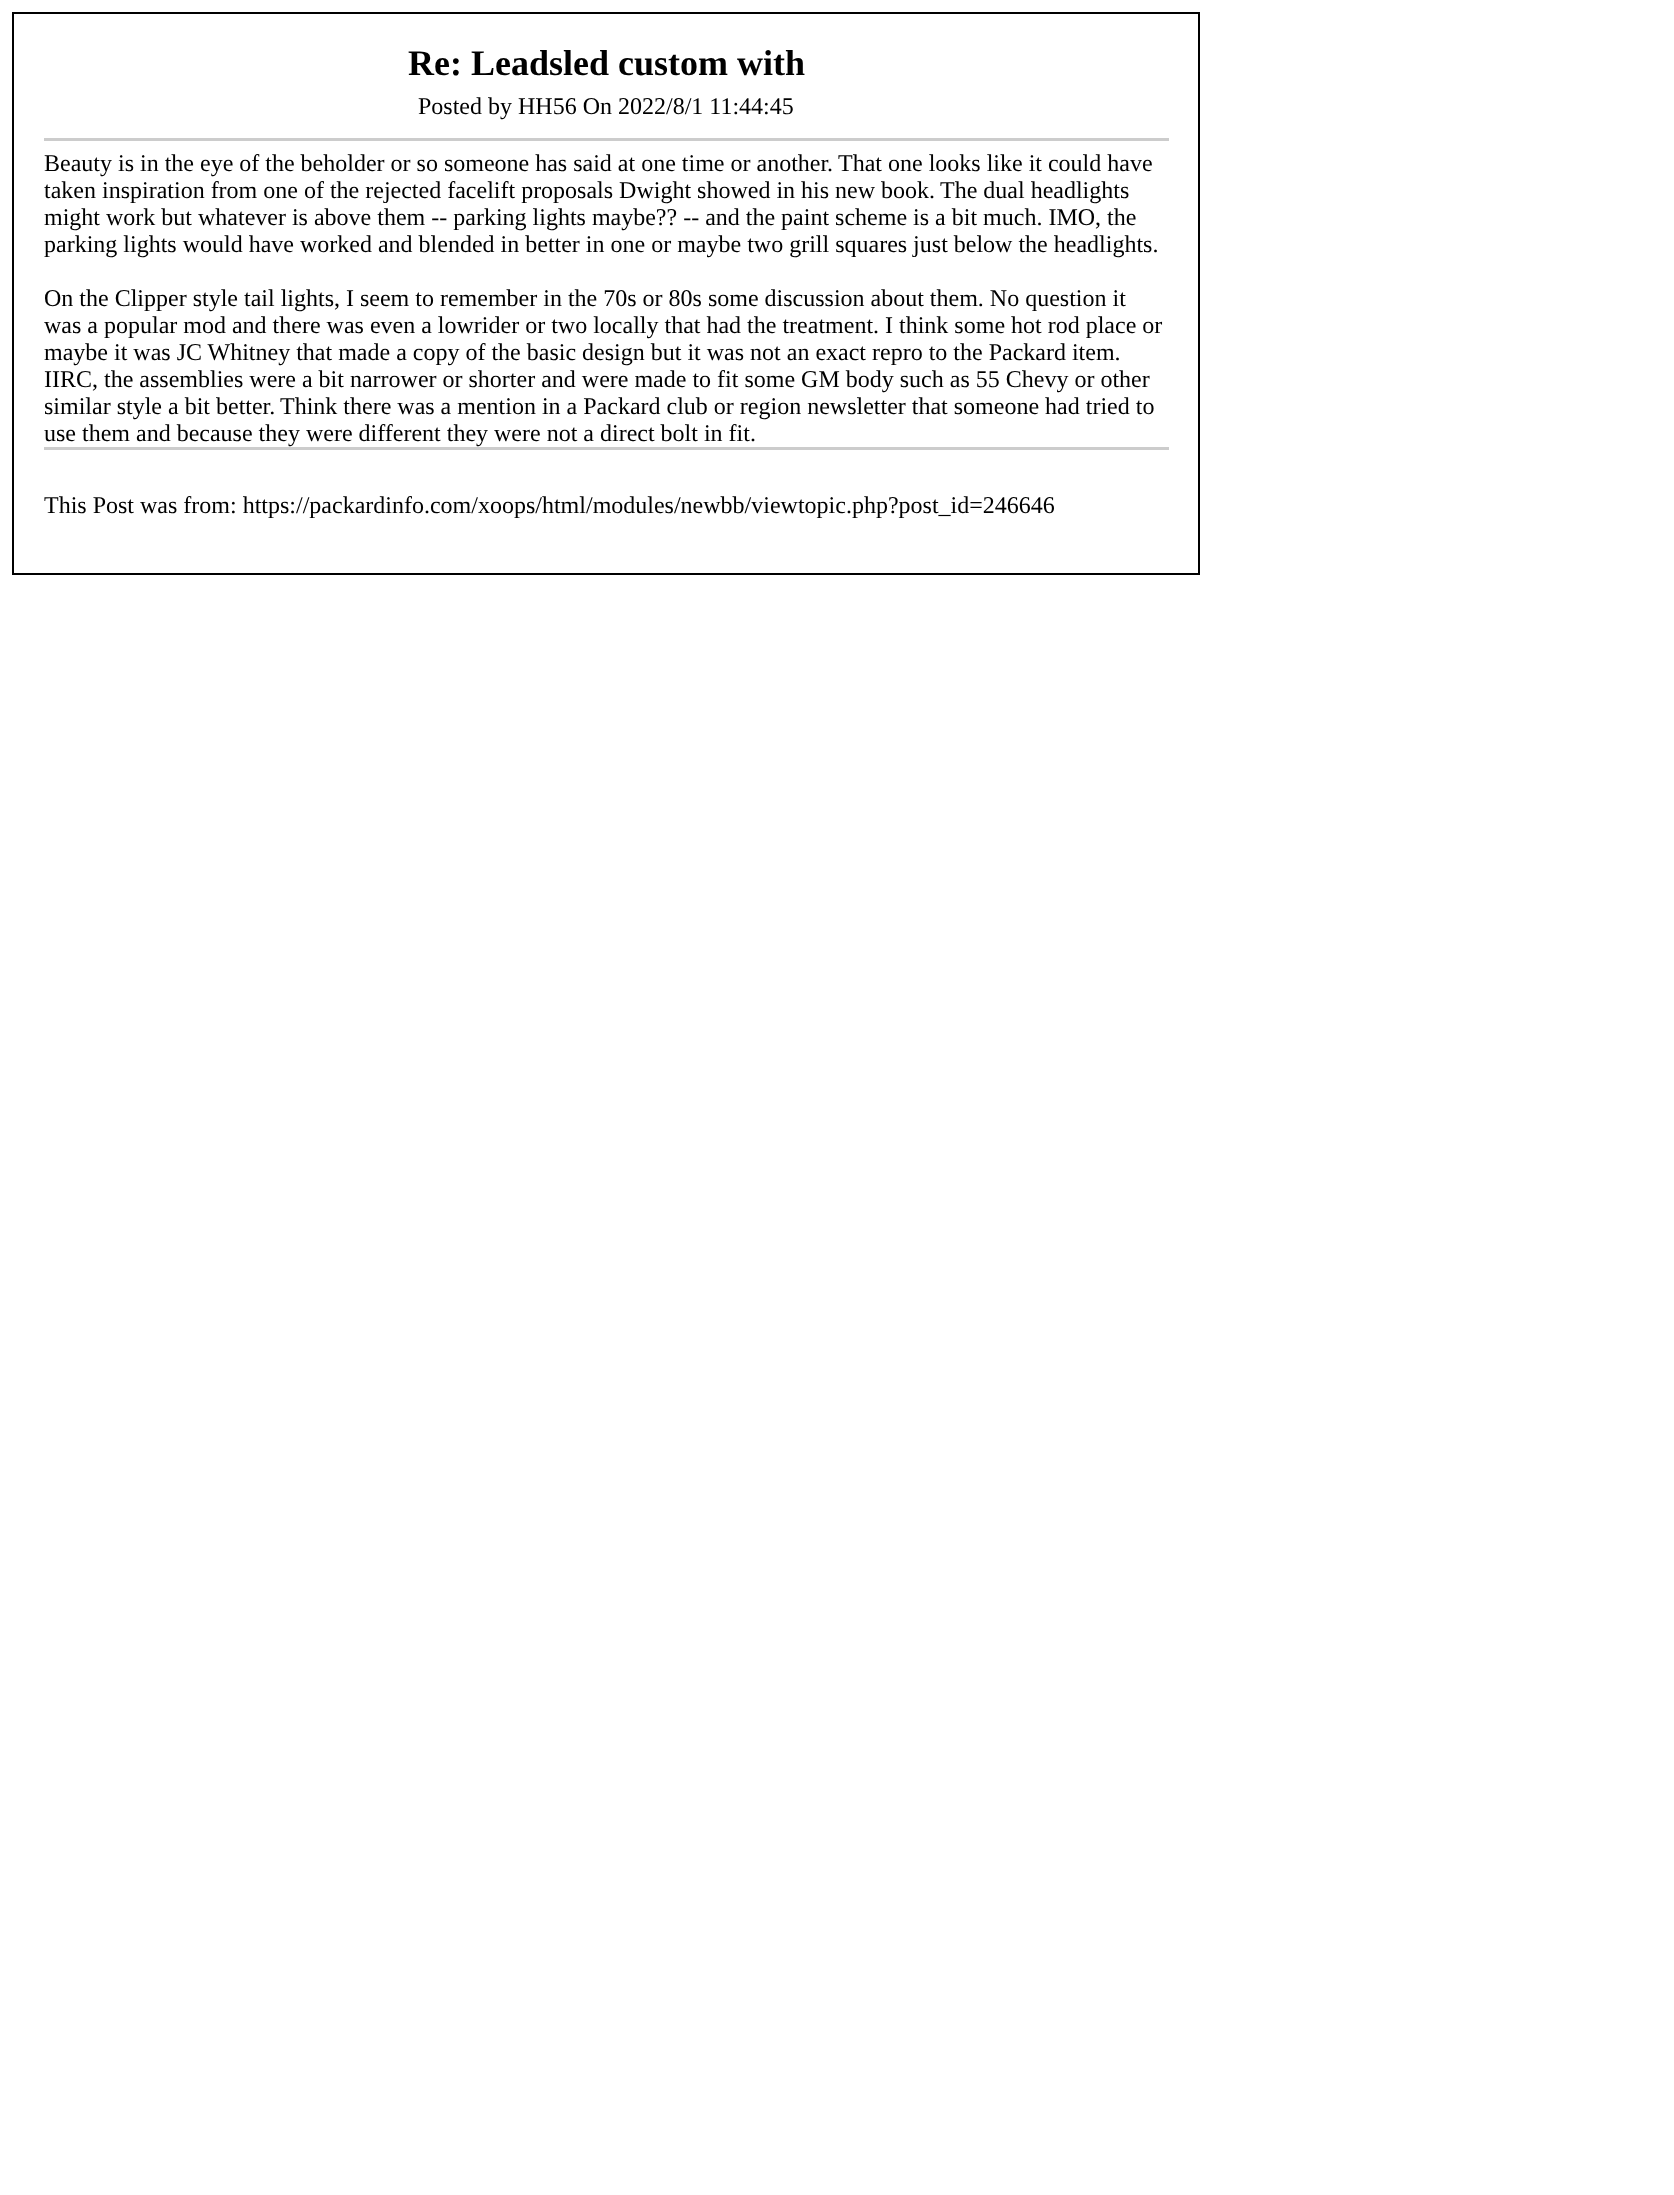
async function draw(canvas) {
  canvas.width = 1674;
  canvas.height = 2195;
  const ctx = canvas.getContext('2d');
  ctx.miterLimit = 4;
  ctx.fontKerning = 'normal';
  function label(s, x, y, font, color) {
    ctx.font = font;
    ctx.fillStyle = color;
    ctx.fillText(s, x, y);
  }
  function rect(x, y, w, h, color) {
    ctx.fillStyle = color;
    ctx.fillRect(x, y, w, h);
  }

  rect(0, 0, 1674, 2195, '#fff');
  ctx.strokeStyle = '#000';
  ctx.lineWidth = 2;
  ctx.strokeRect(13, 13, 1186, 561);
  label('Re: Leadsled custom with', 408, 75, 'bold 36px Liberation Serif', '#000');
  label('Posted by HH56 On 2022/8/1 11:44:45', 418, 114, '24px Liberation Serif', '#000');
  rect(44, 138, 1125, 3, '#ccc');
  label('Beauty is in the eye of the beholder or so someone has said at one time or another.', 44, 171, '24px Liberation Serif', '#000');
  label('That one looks like it could have', 838, 171, '24px Liberation Serif', '#000');
  label('taken inspiration from one of the rejected facelift proposals Dwight showed in his new book.', 44, 198, '24px Liberation Serif', '#000');
  label('The dual headlights', 940, 198, '24px Liberation Serif', '#000');
  label('might work but whatever is above them -- parking lights maybe?? -- and the paint scheme is a bit much. IMO, the', 44, 225, '24px Liberation Serif', '#000');
  label('parking lights would have worked and blended in better in one or maybe two grill squares just below the headlights.', 44, 252, '24px Liberation Serif', '#000');
  label('On the Clipper style tail lights, I seem to remember in the 70s or 80s some discussion about them. No question it', 44, 306, '24px Liberation Serif', '#000');
  label('was a popular mod and there was even a lowrider or two locally that had the treatment. I think some hot rod place or', 44, 333, '24px Liberation Serif', '#000');
  label('maybe it was JC Whitney that made a copy of the basic design but it was not an exact repro to the Packard item.', 44, 360, '24px Liberation Serif', '#000');
  label('IIRC, the assemblies were a bit narrower or shorter and were made to fit some GM body such as 55 Chevy or other', 44, 387, '24px Liberation Serif', '#000');
  label('similar style a bit better.', 44, 414, '24px Liberation Serif', '#000');
  label('Think there was a mention in a Packard club or region newsletter that someone had tried to', 280, 414, '24px Liberation Serif', '#000');
  label('use them and because they were different they were not a direct bolt in fit.', 44, 441, '24px Liberation Serif', '#000');
  rect(44, 447, 1125, 3, '#ccc');
  label('This Post was from: https://packardinfo.com/xoops/html/modules/newbb/viewtopic.php?post_id=246646', 44, 513, '24px Liberation Serif', '#000');
}

draw(document.querySelector('canvas'));
